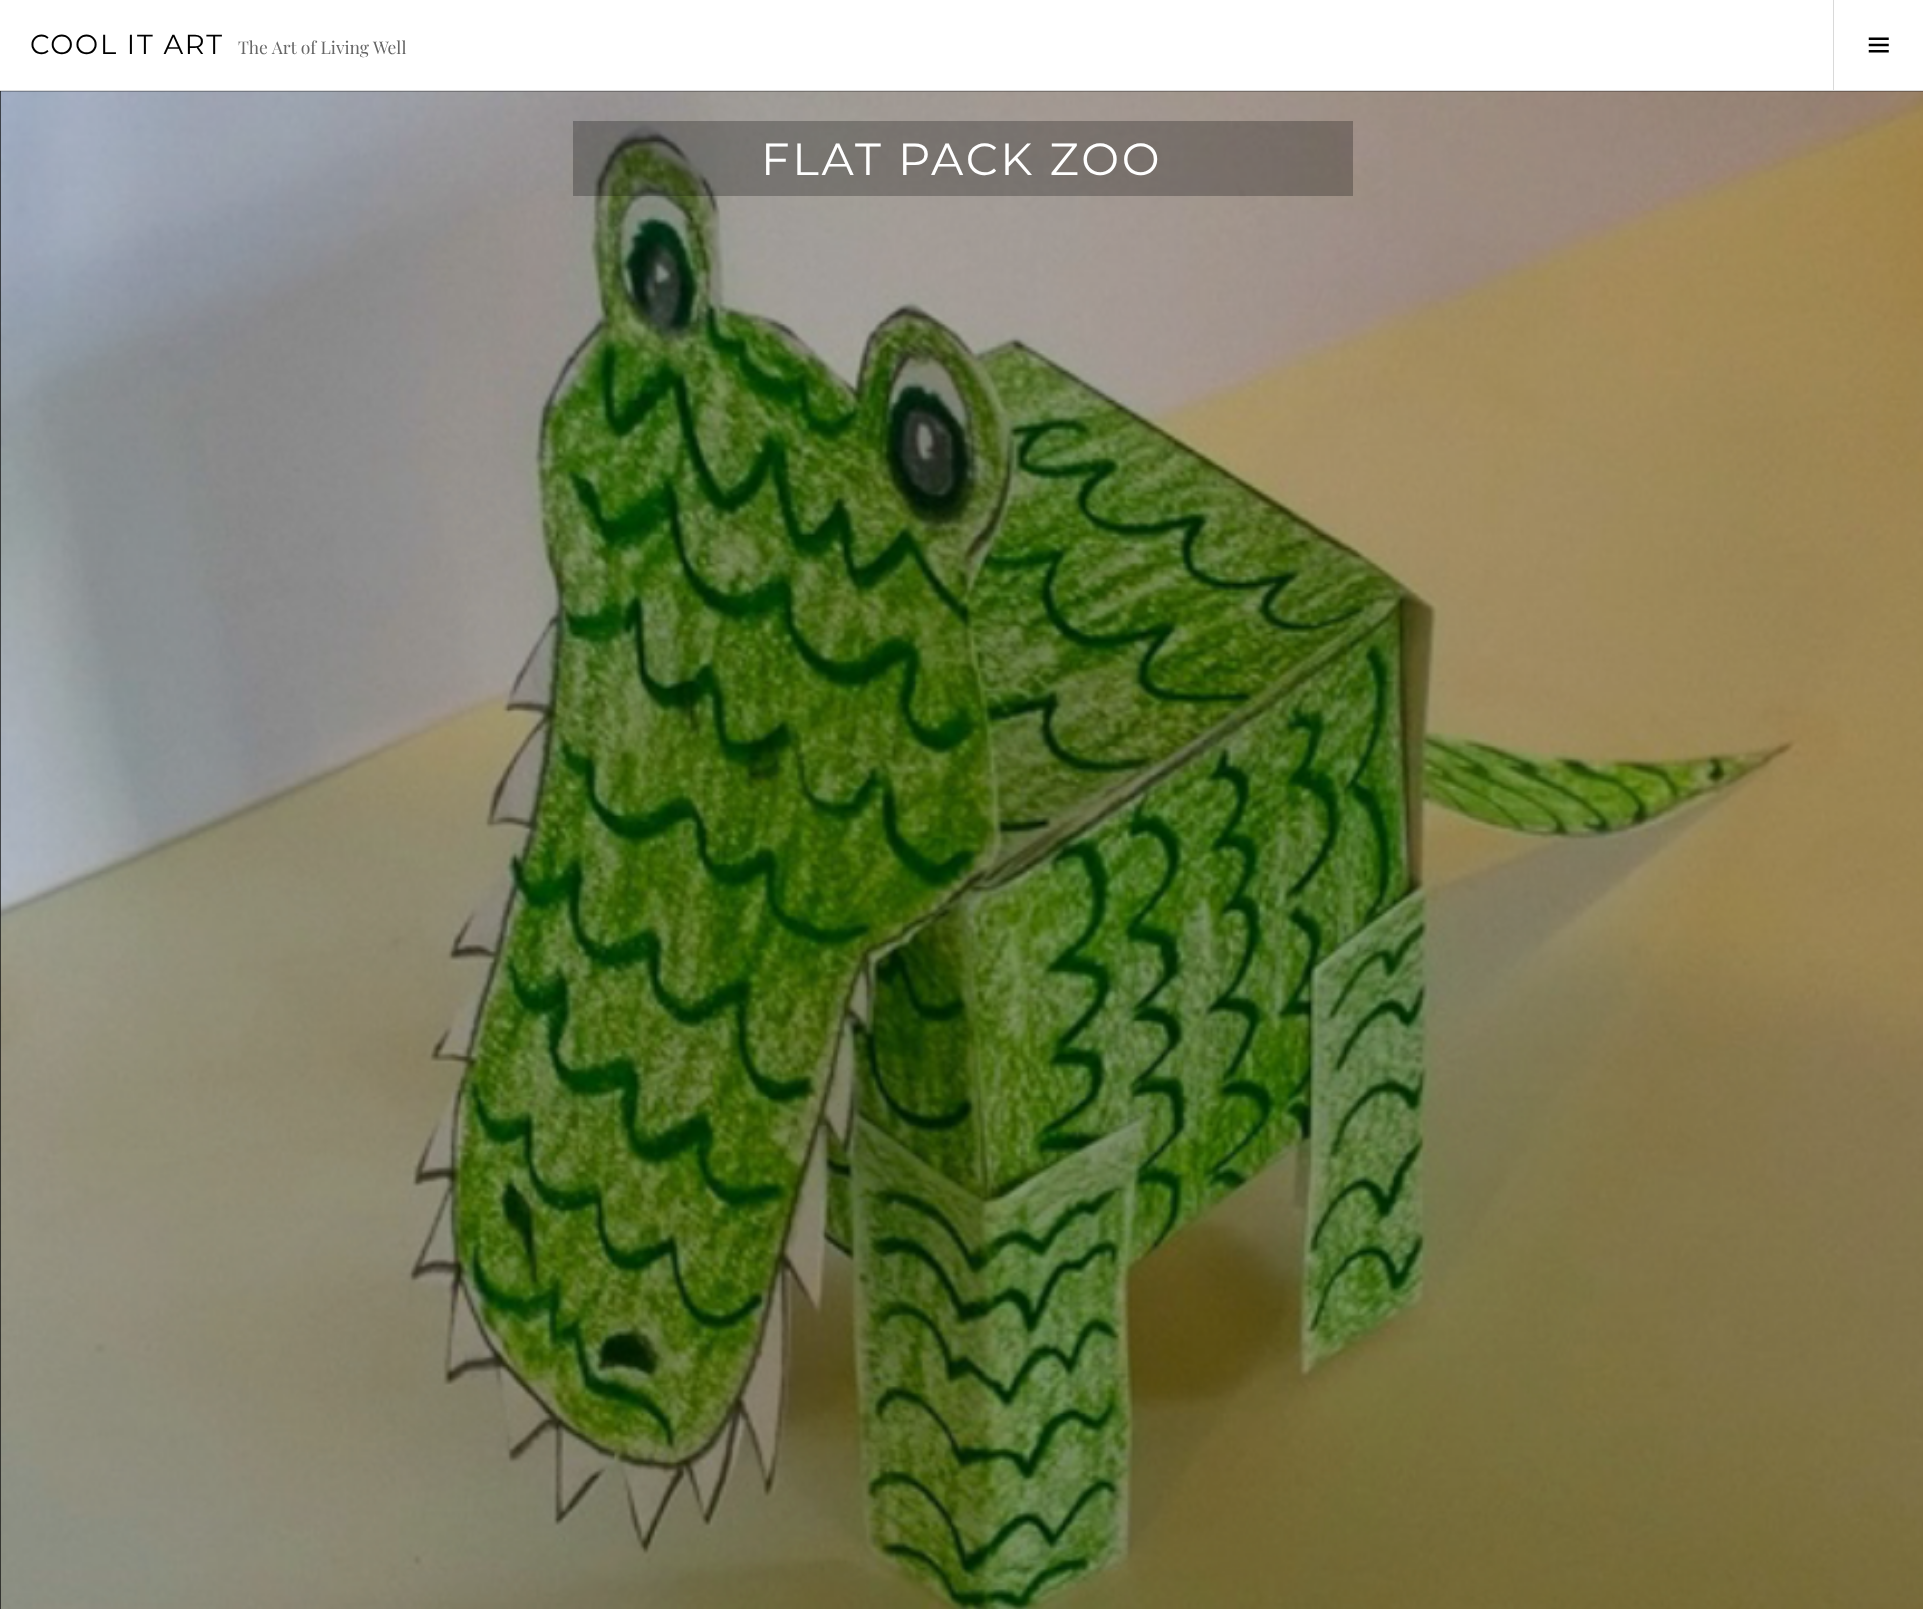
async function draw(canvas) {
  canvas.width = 1923;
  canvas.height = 1609;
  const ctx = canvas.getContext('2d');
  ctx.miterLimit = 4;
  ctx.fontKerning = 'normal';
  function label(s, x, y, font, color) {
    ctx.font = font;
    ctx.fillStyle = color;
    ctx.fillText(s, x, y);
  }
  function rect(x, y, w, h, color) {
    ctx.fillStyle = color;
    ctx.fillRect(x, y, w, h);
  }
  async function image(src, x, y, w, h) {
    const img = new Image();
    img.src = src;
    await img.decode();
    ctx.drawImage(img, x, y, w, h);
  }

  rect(0, 0, 1923, 1609, '#fff');
  rect(0, 90, 1923, 1, '#d9d9d9');
  ctx.letterSpacing = '1.75px';
  label('COOL IT ART', 30, 54, '27.5px Montserrat', '#000');
  ctx.letterSpacing = '0px';
  label('The Art of Living Well', 238, 54, '17.5px Playfair Display', '#666');
  rect(1833, 0, 1, 90, '#d9d9d9');
  await image('assets/img1.png', 1868, 37, 21, 16);
  rect(0, 91, 1923, 1518, '#000');
  await image('assets/img2.png', 0, 91, 1923, 1518);
  rect(573, 121, 780, 75, '#00000040');
  ctx.letterSpacing = '2.75px';
  label('FLAT PACK ZOO', 761, 175, '45px Montserrat', '#fff');
}

draw(document.querySelector('canvas'));
